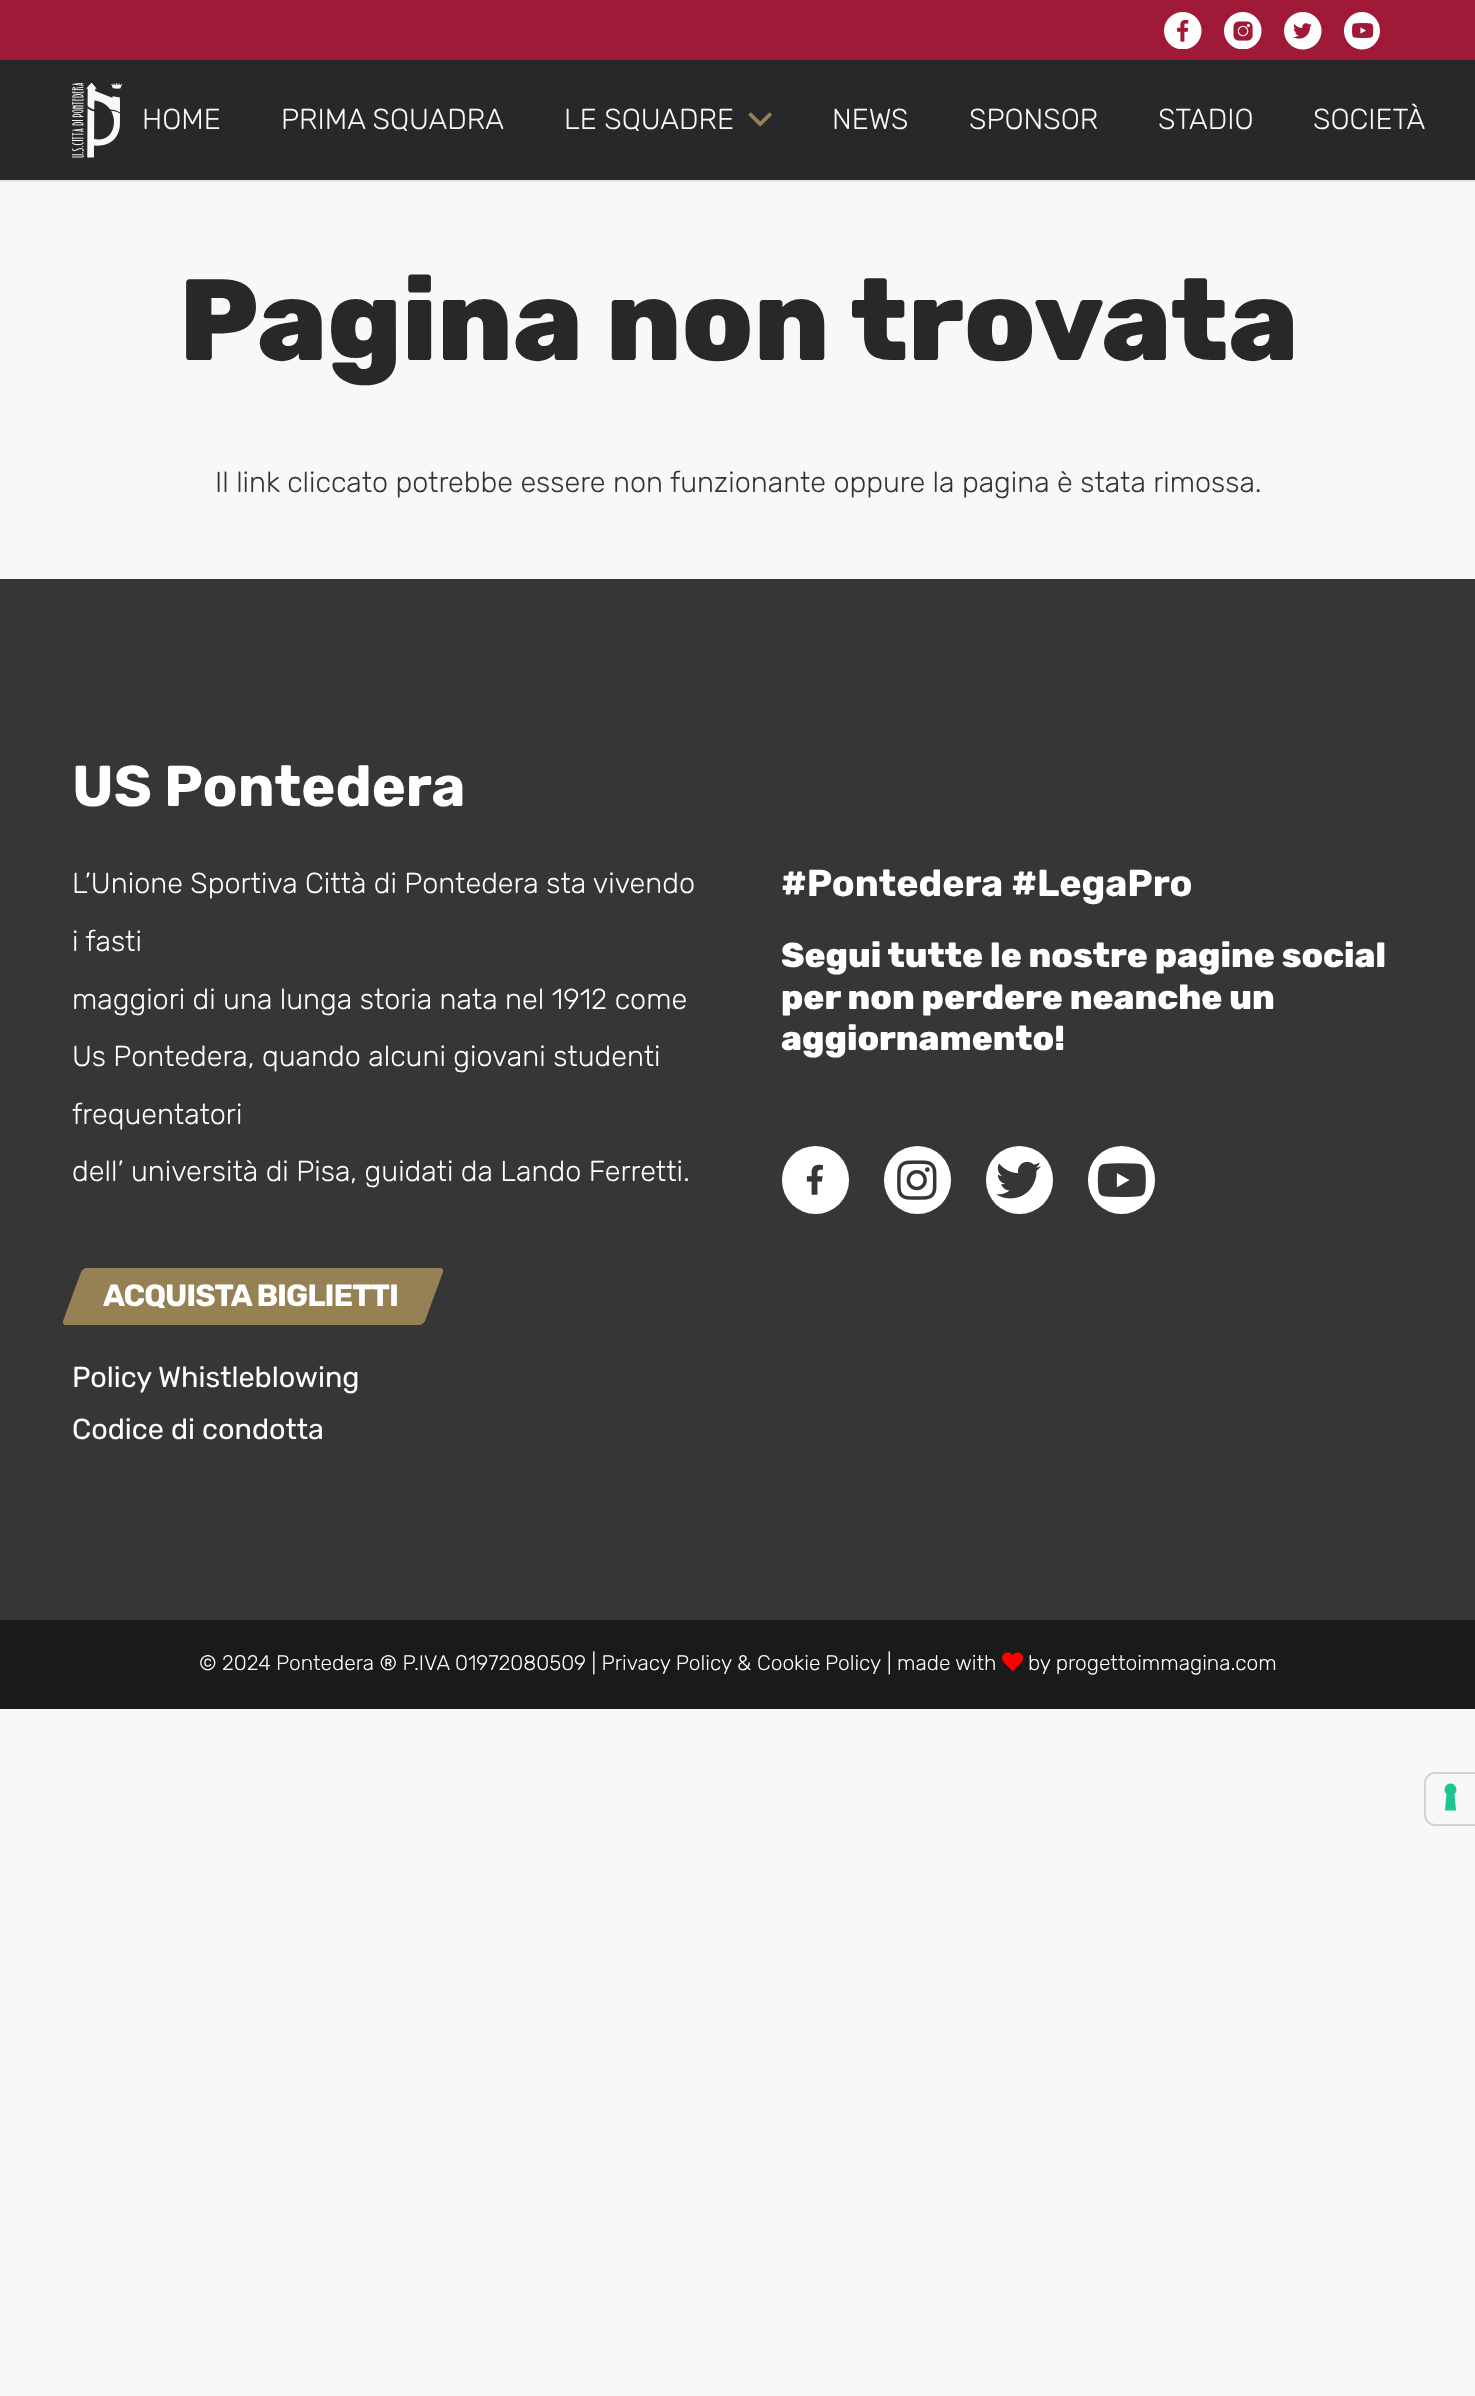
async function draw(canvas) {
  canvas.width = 1475;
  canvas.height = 2396;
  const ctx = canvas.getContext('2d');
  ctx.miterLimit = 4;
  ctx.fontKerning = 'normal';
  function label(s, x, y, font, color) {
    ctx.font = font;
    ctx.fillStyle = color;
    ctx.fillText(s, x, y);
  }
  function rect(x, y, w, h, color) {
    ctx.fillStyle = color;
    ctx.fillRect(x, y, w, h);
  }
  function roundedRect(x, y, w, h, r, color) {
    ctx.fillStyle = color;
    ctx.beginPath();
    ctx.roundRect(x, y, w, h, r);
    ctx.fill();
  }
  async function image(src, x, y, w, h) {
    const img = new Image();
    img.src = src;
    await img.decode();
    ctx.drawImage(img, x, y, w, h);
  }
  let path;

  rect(0, 0, 1475, 2396, '#f8f8f8');
  rect(0, 0, 1475, 60, '#a01936');
  await image('assets/img1.png', 1164, 12, 38, 37);
  await image('assets/img2.png', 1224, 12, 38, 37);
  await image('assets/img3.png', 1284, 12, 38, 38);
  await image('assets/img4.png', 1344, 12, 36, 38);
  rect(0, 180, 1475, 2, '#e4e4e4');
  rect(0, 60, 1475, 120, '#272829');
  await image('assets/img5.png', 72, 83, 51, 75);
  label('HOME', 142, 129, '300 28.8px Rubik', '#f8f8f8');
  label('PRIMA SQUADRA', 281, 129, '300 28.8px Rubik', '#f8f8f8');
  label('LE SQUADRE', 564, 129, '300 28.8px Rubik', '#f8f8f8');
  await image('assets/img6.png', 748, 112, 24, 15);
  label('NEWS', 832, 129, '300 28.8px Rubik', '#f8f8f8');
  label('SPONSOR', 969, 129, '300 28.8px Rubik', '#f8f8f8');
  label('STADIO', 1158, 129, '300 28.8px Rubik', '#f8f8f8');
  label('SOCIETÀ', 1313, 129, '300 28.8px Rubik', '#f8f8f8');
  label('Pagina non trovata', 179, 360, '800 115.25px Rubik', '#272829');
  label('Il link cliccato potrebbe essere non funzionante oppure la pagina è stata rimossa.', 215, 492, '300 28.8px Rubik', '#333');
  rect(0, 579, 1475, 1041, '#363636');
  label('US Pontedera', 72, 806, 'bold 57.5px Rubik', '#fff');
  label('L’Unione Sportiva Città di Pontedera sta vivendo', 72, 893, '300 28.8px Rubik', '#fff');
  label('i fasti', 72, 951, '300 28.8px Rubik', '#fff');
  label('maggiori di una lunga storia nata nel 1912 come', 72, 1009, '300 28.8px Rubik', '#fff');
  label('Us Pontedera, quando alcuni giovani studenti', 72, 1066, '300 28.8px Rubik', '#fff');
  label('frequentatori', 72, 1124, '300 28.8px Rubik', '#fff');
  label('dell’ università di Pisa, guidati da Lando Ferretti.', 72, 1181, '300 28.8px Rubik', '#fff');
  ctx.fillStyle = '#958154';
  path = new Path2D('M87 1268H440C442 1268 444 1270 443 1272L425 1321C424 1323 421 1325 419 1325H66C64 1325 62 1323 63 1321L81 1272C82 1270 84 1268 87 1268Z');
  ctx.fill(path);
  ctx.letterSpacing = '-1px';
  label('ACQUISTA BIGLIETTI', 103, 1306, 'bold 30.75px Rubik', '#fff');
  ctx.letterSpacing = '0px';
  label('Policy Whistleblowing', 72, 1387, '28.8px Rubik', '#fff');
  label('Codice di condotta', 72, 1439, '28.8px Rubik', '#fff');
  label('#Pontedera #LegaPro', 781, 896, 'bold 37.5px Rubik', '#fff');
  label('Segui tutte le nostre pagine social', 781, 967, '800 34.6px Rubik', '#fff');
  label('per non perdere neanche un', 781, 1009, '800 34.6px Rubik', '#fff');
  label('aggiornamento!', 781, 1050, '800 34.6px Rubik', '#fff');
  roundedRect(782, 1146, 67, 68, 33.5, '#fff');
  await image('assets/img7.png', 806, 1164, 17, 31);
  roundedRect(884, 1146, 67, 68, 33.5, '#fff');
  await image('assets/img8.png', 897, 1160, 40, 40);
  roundedRect(986, 1146, 67, 68, 33.5, '#fff');
  await image('assets/img9.png', 996, 1161, 45, 38);
  roundedRect(1088, 1146, 67, 68, 33.5, '#fff');
  await image('assets/img10.png', 1097, 1163, 49, 34);
  rect(0, 1620, 1475, 89, '#1a1a1a');
  label('© 2024 Pontedera ® P.IVA 01972080509 | Privacy Policy &', 199, 1670, '300 21px Rubik', '#fff');
  ctx.wordSpacing = '-1px';
  label('Cookie Policy', 757, 1670, '300 21px Rubik', '#fff');
  ctx.wordSpacing = '0px';
  label('| made with', 887, 1670, '300 21px Rubik', '#fff');
  await image('assets/img11.png', 1002, 1652, 21, 19);
  label('by progettoimmagina.com', 1028, 1670, '300 21px Rubik', '#fff');
  path = new Path2D('M1435 1773H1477V1825H1435C1429.5 1825 1425 1820.5 1425 1815V1783C1425 1777.5 1429.5 1773 1435 1773Z');
  ctx.strokeStyle = '#d3d3d3';
  ctx.lineWidth = 2;
  ctx.stroke(path);
  ctx.fillStyle = '#1cc691';
  path = new Path2D('M1450.5 1783.5C1456 1783.5 1458.5 1790.5 1454.5 1794L1456 1810.5H1445L1446.5 1794C1442.5 1790.5 1445 1783.5 1450.5 1783.5Z');
  ctx.fill(path, 'evenodd');
}

draw(document.querySelector('canvas'));
